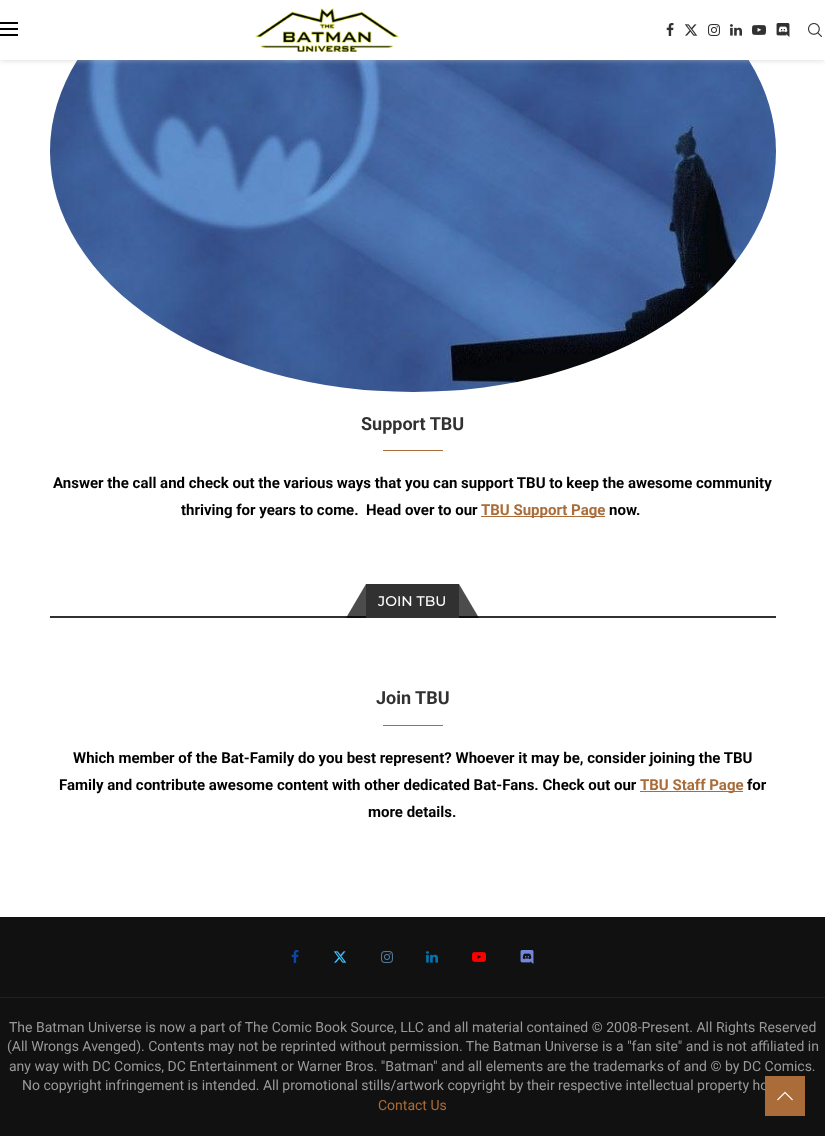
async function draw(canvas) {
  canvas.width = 825;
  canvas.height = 1136;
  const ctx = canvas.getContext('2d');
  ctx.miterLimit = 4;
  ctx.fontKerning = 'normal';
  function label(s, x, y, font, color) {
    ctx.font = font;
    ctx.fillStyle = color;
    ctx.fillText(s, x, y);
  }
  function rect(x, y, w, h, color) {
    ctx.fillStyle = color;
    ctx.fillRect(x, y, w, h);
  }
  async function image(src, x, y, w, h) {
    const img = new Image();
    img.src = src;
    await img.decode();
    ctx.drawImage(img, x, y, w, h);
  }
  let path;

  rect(0, 0, 825, 1136, '#fff');
  await image('assets/img9.png', 50, 60, 726, 332);
  ctx.fillStyle = '#bebebe75';
  ctx.filter = 'blur(2.5px)';
  ctx.beginPath();
  ctx.rect(0, 1, 825, 60);
  ctx.fill();
  ctx.filter = 'none';
  rect(0, 0, 825, 60, '#fff');
  rect(0, 22, 18, 2, '#000');
  rect(0, 28, 18, 2, '#000');
  rect(0, 34, 18, 2, '#000');
  await image('assets/img1.png', 255, 7, 144, 45);
  await image('assets/img2.png', 666, 23, 8, 13);
  await image('assets/img3.png', 684, 24, 14, 12);
  await image('assets/img4.png', 708, 24, 12, 12);
  await image('assets/img5.png', 730, 24, 12, 12);
  await image('assets/img6.png', 752, 25, 14, 10);
  await image('assets/img7.png', 776, 23, 14, 14);
  await image('assets/img8.png', 808, 23, 14, 14);
  label('Support TBU', 361, 430, 'bold 18px Roboto', '#313131');
  rect(383, 450, 60, 1, '#aa6c39');
  label('Answer the call and check out the various ways that you can support TBU to keep the awesome community', 53, 488, 'bold 15px Roboto', '#000');
  label('thriving for years to come.  Head over to our', 181, 515, 'bold 15px Roboto', '#000');
  rect(481, 516, 124, 1, '#aa6c39');
  label('TBU Support Page', 481, 515, 'bold 15px Roboto', '#aa6c39');
  label('now.', 609, 515, 'bold 15px Roboto', '#000');
  rect(50, 616, 726, 2, '#313131');
  rect(366, 584, 93, 32, '#313131');
  ctx.fillStyle = '#000000b3';
  path = new Path2D('M366 618H346L366 584Z');
  ctx.fill(path);
  label('JOIN TBU', 378, 606, '500 14px Montserrat', '#fff');
  ctx.fillStyle = '#000000b3';
  path = new Path2D('M479 618H459V584Z');
  ctx.fill(path);
  label('Join TBU', 376, 704, 'bold 18px Roboto', '#313131');
  rect(383, 725, 60, 1, '#aa6c39');
  label('Which member of the Bat-Family do you best represent? Whoever it may be, consider joining the TBU', 73, 763, 'bold 15px Roboto', '#000');
  label('Family and contribute awesome content with other dedicated Bat-Fans. Check out our', 59, 790, 'bold 15px Roboto', '#000');
  rect(640, 791, 103, 1, '#aa6c39');
  label('TBU Staff Page', 640, 790, 'bold 15px Roboto', '#aa6c39');
  label('for', 747, 790, 'bold 15px Roboto', '#000');
  label('more details.', 368, 817, 'bold 15px Roboto', '#000');
  rect(0, 917, 825, 219, '#111');
  rect(0, 997, 825, 1, '#212121');
  await image('assets/img10.png', 291, 950, 8, 13);
  await image('assets/img11.png', 333, 951, 14, 12);
  await image('assets/img12.png', 381, 951, 12, 12);
  await image('assets/img13.png', 426, 951, 12, 12);
  await image('assets/img14.png', 472, 952, 14, 10);
  await image('assets/img15.png', 520, 950, 14, 14);
  label('The Batman Universe is now a part of The Comic Book Source, LLC and all material contained © 2008-Present. All Rights Reserved', 9, 1032, '14px Roboto', '#999');
  label('(All Wrongs Avenged). Contents may not be reprinted without permission. The Batman Universe is a "fan site" and is not affiliated in', 7, 1051, '14px Roboto', '#999');
  label('any way with DC Comics, DC Entertainment or Warner Bros. "Batman" and all elements are the trademarks of and © by DC Comics.', 9, 1071, '14px Roboto', '#999');
  label('No copyright infringement is intended. All promotional stills/artwork copyright by their respective intellectual property ho', 22, 1090, '14px Roboto', '#999');
  label('Contact Us', 378, 1110, '14px Roboto', '#aa6c39');
  rect(765, 1076, 40, 40, '#aa6c39');
  await image('assets/img16.png', 777, 1091, 16, 10);
}

draw(document.querySelector('canvas'));
